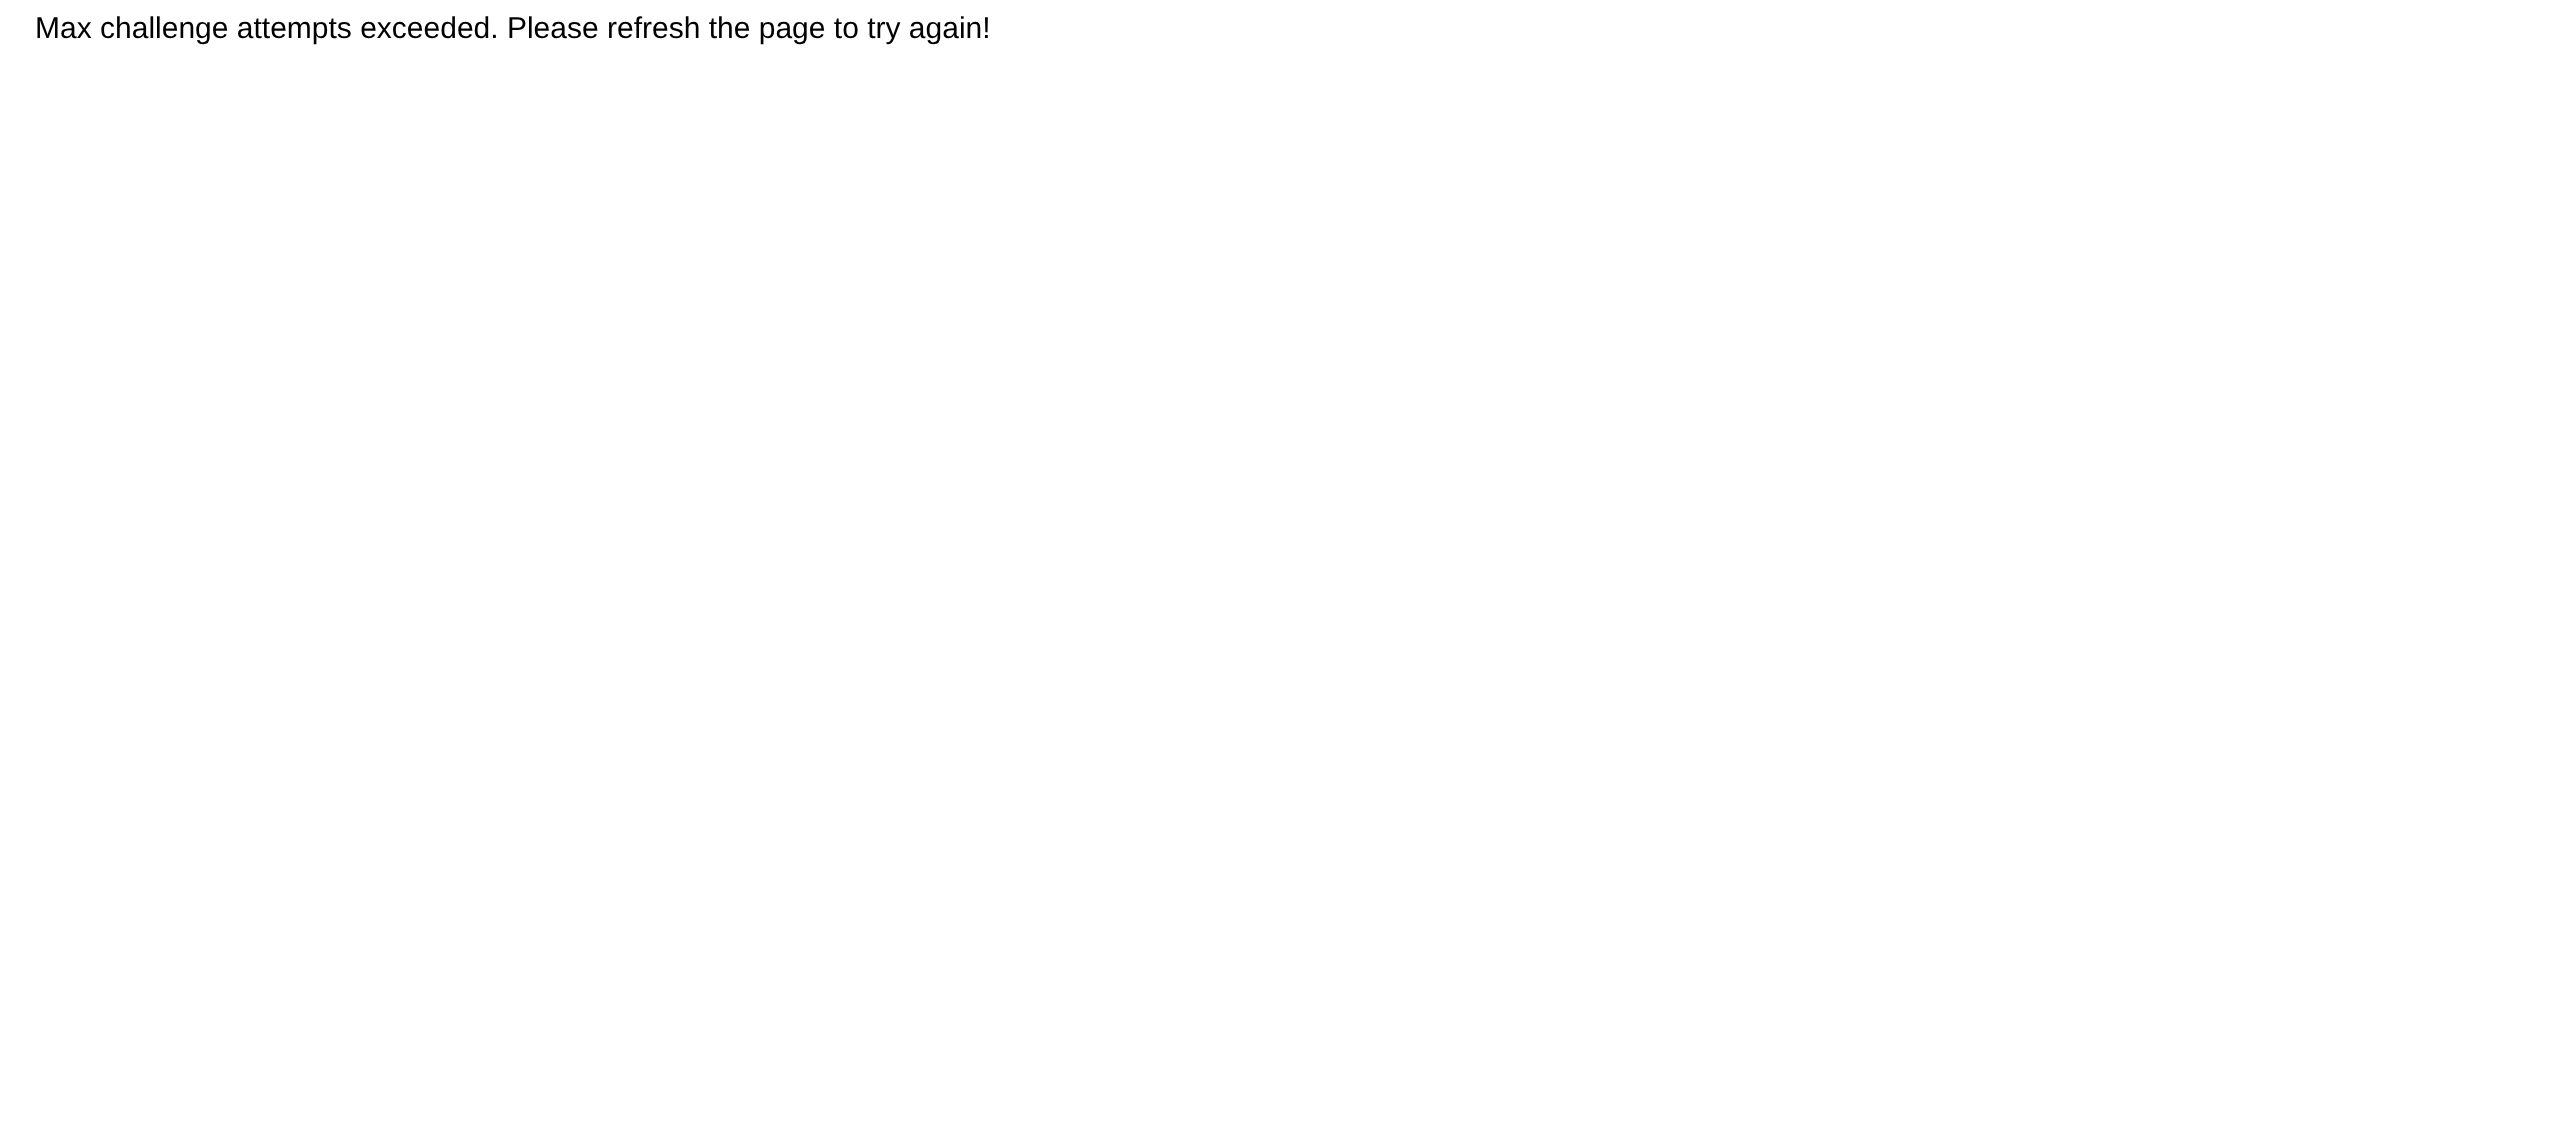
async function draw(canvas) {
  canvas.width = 2570;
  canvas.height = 1133;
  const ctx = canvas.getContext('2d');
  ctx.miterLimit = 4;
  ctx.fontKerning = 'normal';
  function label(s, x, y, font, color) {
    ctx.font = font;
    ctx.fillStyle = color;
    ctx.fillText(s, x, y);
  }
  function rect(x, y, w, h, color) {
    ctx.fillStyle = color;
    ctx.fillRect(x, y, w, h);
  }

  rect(0, 0, 2570, 1133, '#fff');
  label('Max challenge attempts exceeded. Please refresh the page to try again!', 35, 38, '30px Liberation Sans', '#000');
}

draw(document.querySelector('canvas'));
